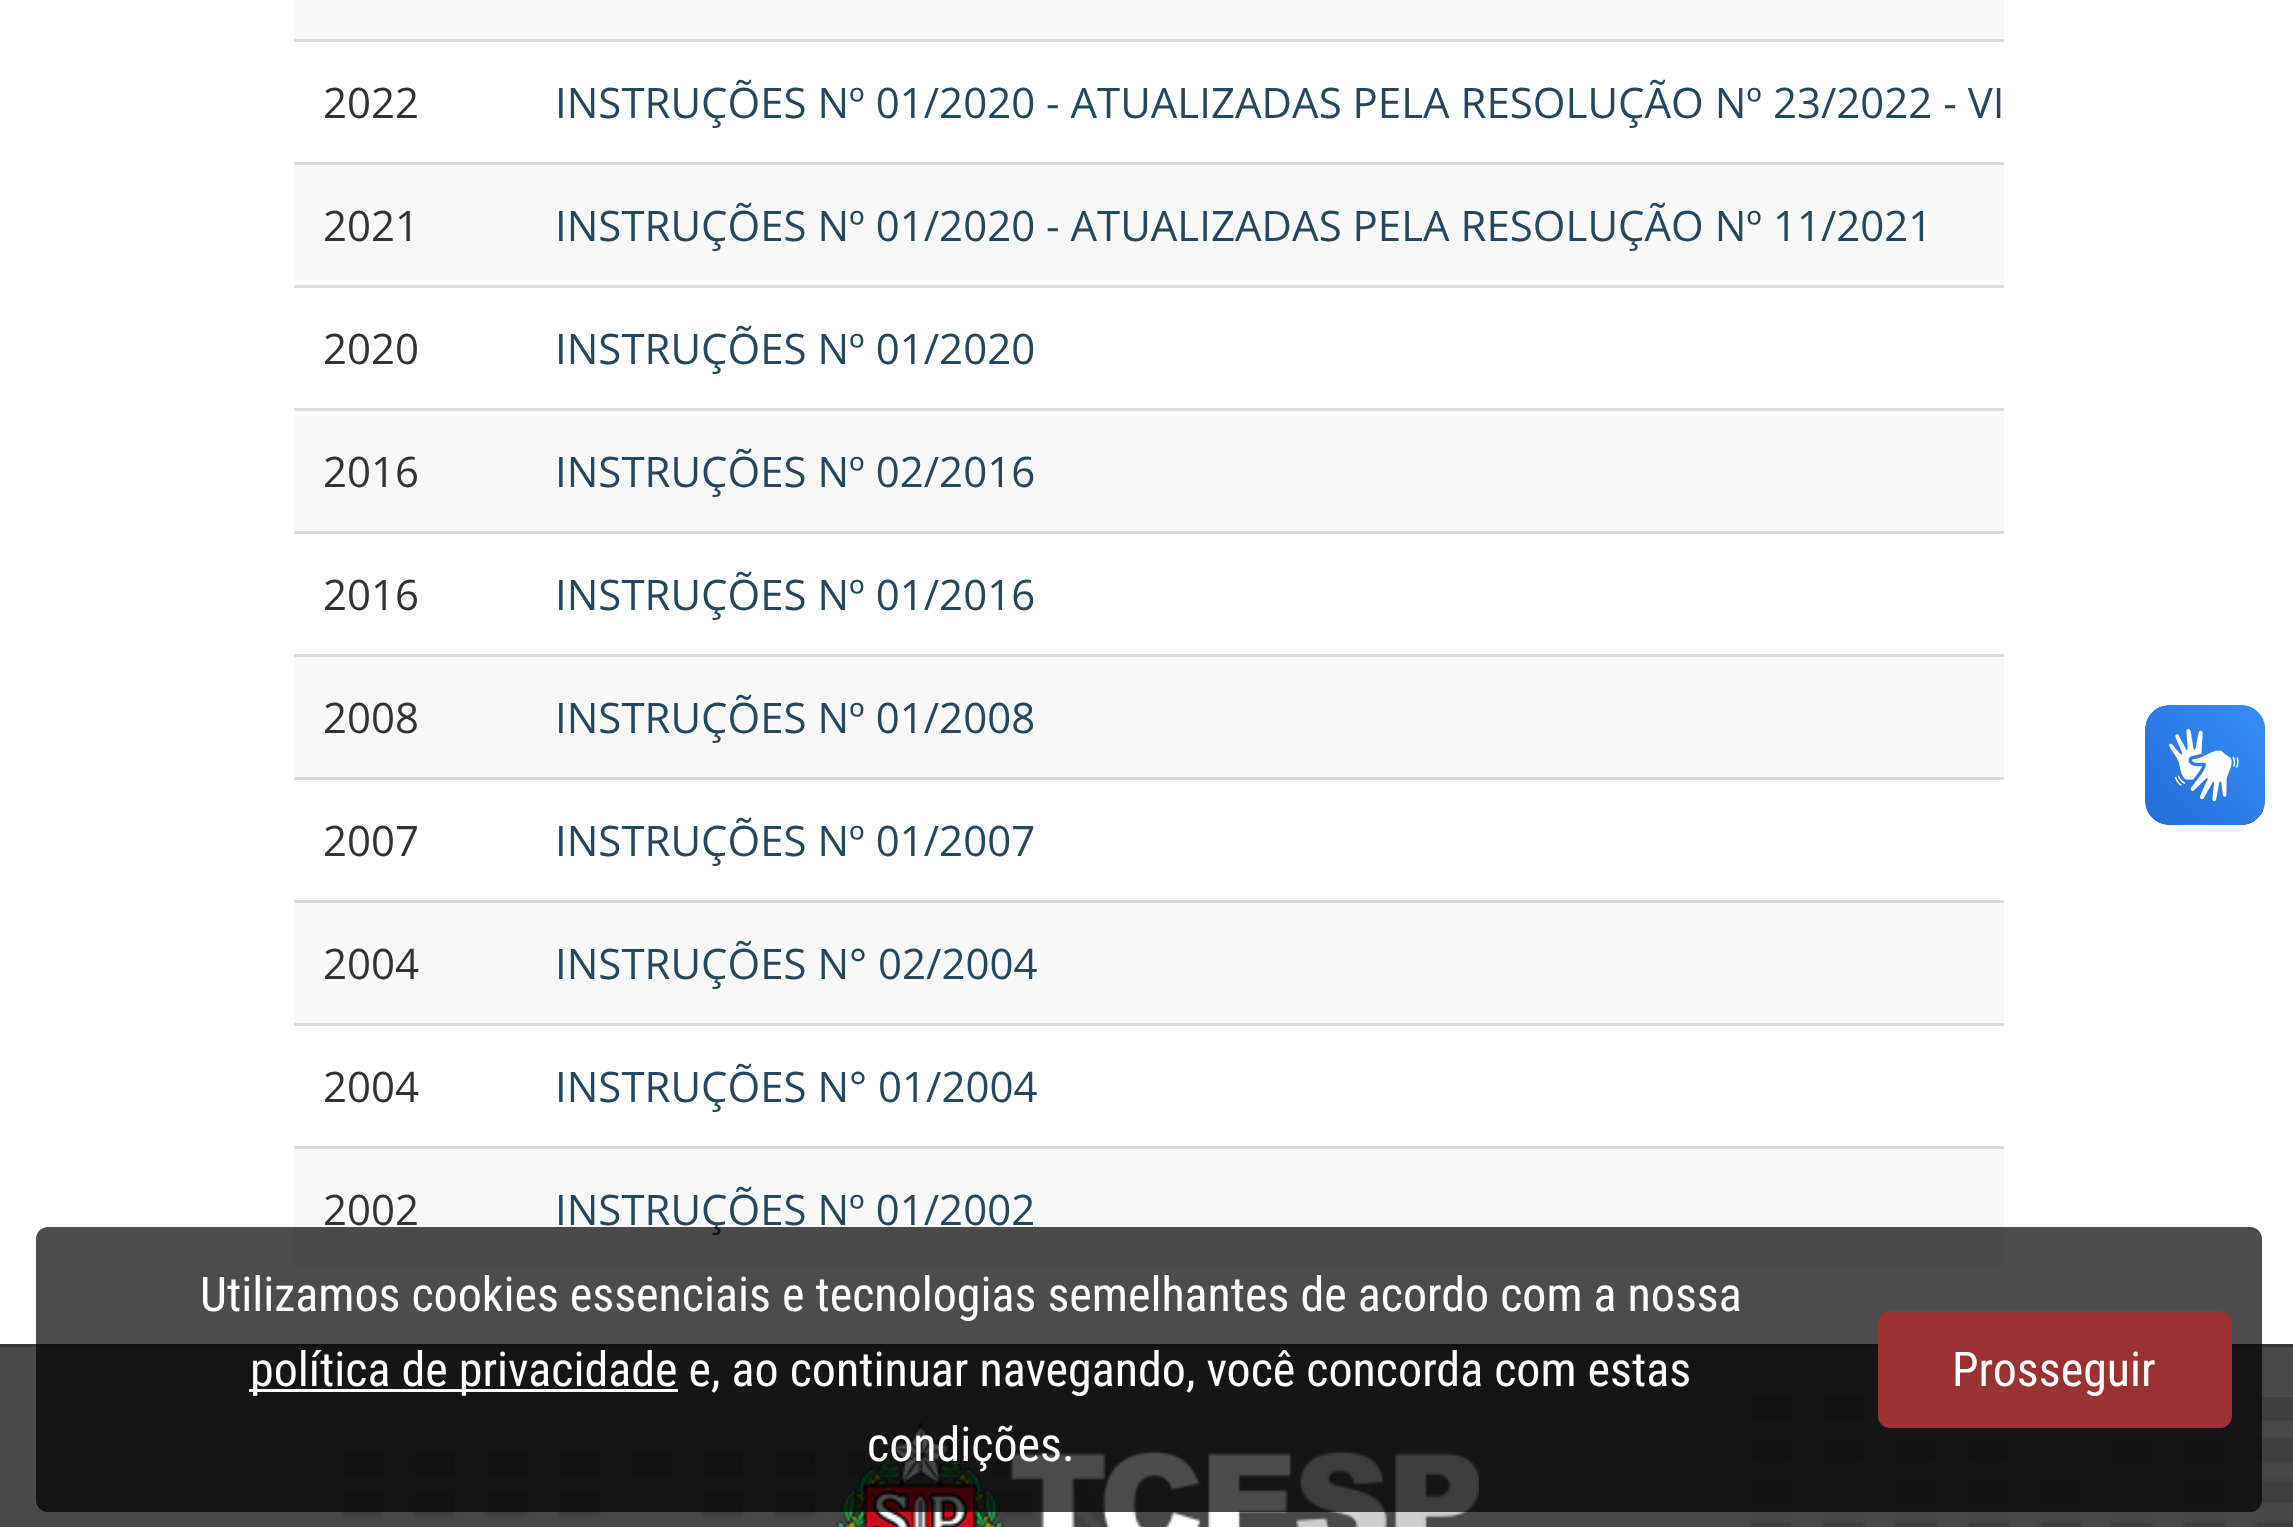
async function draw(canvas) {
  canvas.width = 2293;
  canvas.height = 1527;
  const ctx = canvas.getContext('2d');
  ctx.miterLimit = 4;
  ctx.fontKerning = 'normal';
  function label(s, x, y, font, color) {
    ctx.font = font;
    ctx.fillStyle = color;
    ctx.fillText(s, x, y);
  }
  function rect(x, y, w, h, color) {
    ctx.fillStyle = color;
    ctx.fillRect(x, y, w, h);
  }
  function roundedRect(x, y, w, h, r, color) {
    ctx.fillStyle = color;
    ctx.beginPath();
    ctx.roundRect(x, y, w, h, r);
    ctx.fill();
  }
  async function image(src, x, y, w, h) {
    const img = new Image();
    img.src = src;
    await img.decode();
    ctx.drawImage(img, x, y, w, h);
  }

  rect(0, 0, 2293, 1527, '#fff');
  rect(294, 0, 1710, 39, '#f9f9f9');
  label('2022', 323, 118, '42px Open Sans', '#333');
  rect(294, 39, 1710, 3, '#ddd');
  label('INSTRUÇÕES Nº 01/2020 - ATUALIZADAS PELA RESOLUÇÃO Nº 23/2022 - VI', 555, 118, '42px Open Sans', '#26485f');
  rect(294, 165, 1710, 120, '#f9f9f9');
  label('2021', 323, 241, '42px Open Sans', '#333');
  rect(294, 162, 1710, 3, '#ddd');
  label('INSTRUÇÕES Nº 01/2020 - ATUALIZADAS PELA RESOLUÇÃO Nº 11/2021', 555, 241, '42px Open Sans', '#26485f');
  label('2020', 323, 364, '42px Open Sans', '#333');
  rect(294, 285, 1710, 3, '#ddd');
  label('INSTRUÇÕES Nº 01/2020', 555, 364, '42px Open Sans', '#26485f');
  rect(294, 411, 1710, 120, '#f9f9f9');
  label('2016', 323, 487, '42px Open Sans', '#333');
  rect(294, 408, 1710, 3, '#ddd');
  label('INSTRUÇÕES Nº 02/2016', 555, 487, '42px Open Sans', '#26485f');
  label('2016', 323, 610, '42px Open Sans', '#333');
  rect(294, 531, 1710, 3, '#ddd');
  label('INSTRUÇÕES Nº 01/2016', 555, 610, '42px Open Sans', '#26485f');
  rect(294, 657, 1710, 120, '#f9f9f9');
  label('2008', 323, 733, '42px Open Sans', '#333');
  rect(294, 654, 1710, 3, '#ddd');
  label('INSTRUÇÕES Nº 01/2008', 555, 733, '42px Open Sans', '#26485f');
  label('2007', 323, 856, '42px Open Sans', '#333');
  rect(294, 777, 1710, 3, '#ddd');
  label('INSTRUÇÕES Nº 01/2007', 555, 856, '42px Open Sans', '#26485f');
  rect(294, 903, 1710, 120, '#f9f9f9');
  label('2004', 323, 979, '42px Open Sans', '#333');
  rect(294, 900, 1710, 3, '#ddd');
  label('INSTRUÇÕES N° 02/2004', 555, 979, '42px Open Sans', '#26485f');
  label('2004', 323, 1102, '42px Open Sans', '#333');
  rect(294, 1023, 1710, 3, '#ddd');
  label('INSTRUÇÕES N° 01/2004', 555, 1102, '42px Open Sans', '#26485f');
  rect(294, 1149, 1710, 120, '#f9f9f9');
  label('2002', 323, 1225, '42px Open Sans', '#333');
  rect(294, 1146, 1710, 3, '#ddd');
  label('INSTRUÇÕES Nº 01/2002', 555, 1225, '42px Open Sans', '#26485f');
  rect(0, 1347, 2293, 180, '#494949');
  await image('assets/img1.png', 2145, 705, 120, 120);
  await image('assets/img2.png', 2145, 705, 120, 120);
  await image('assets/img3.png', 342, 1397, 1951, 130);
  rect(0, 1344, 2293, 3, '#3a3a3a');
  await image('assets/img4.png', 836, 1422, 643, 105);
  roundedRect(36, 1227, 2226, 285, 12, '#000000b3');
  label('Utilizamos cookies essenciais e tecnologias semelhantes de acordo com a nossa', 200, 1311, '48px Roboto Condensed', '#fff');
  rect(249, 1389, 429, 3, '#fff');
  label('política de privacidade e, ao continuar navegando, você concorda com estas', 250, 1386, '48px Roboto Condensed', '#fff');
  label('condições.', 867, 1461, '48px Roboto Condensed', '#fff');
  roundedRect(1878, 1311, 354, 117, 12, '#9a3233');
  label('Prosseguir', 1952, 1386, '48px Roboto Condensed', '#fff');
}

draw(document.querySelector('canvas'));
